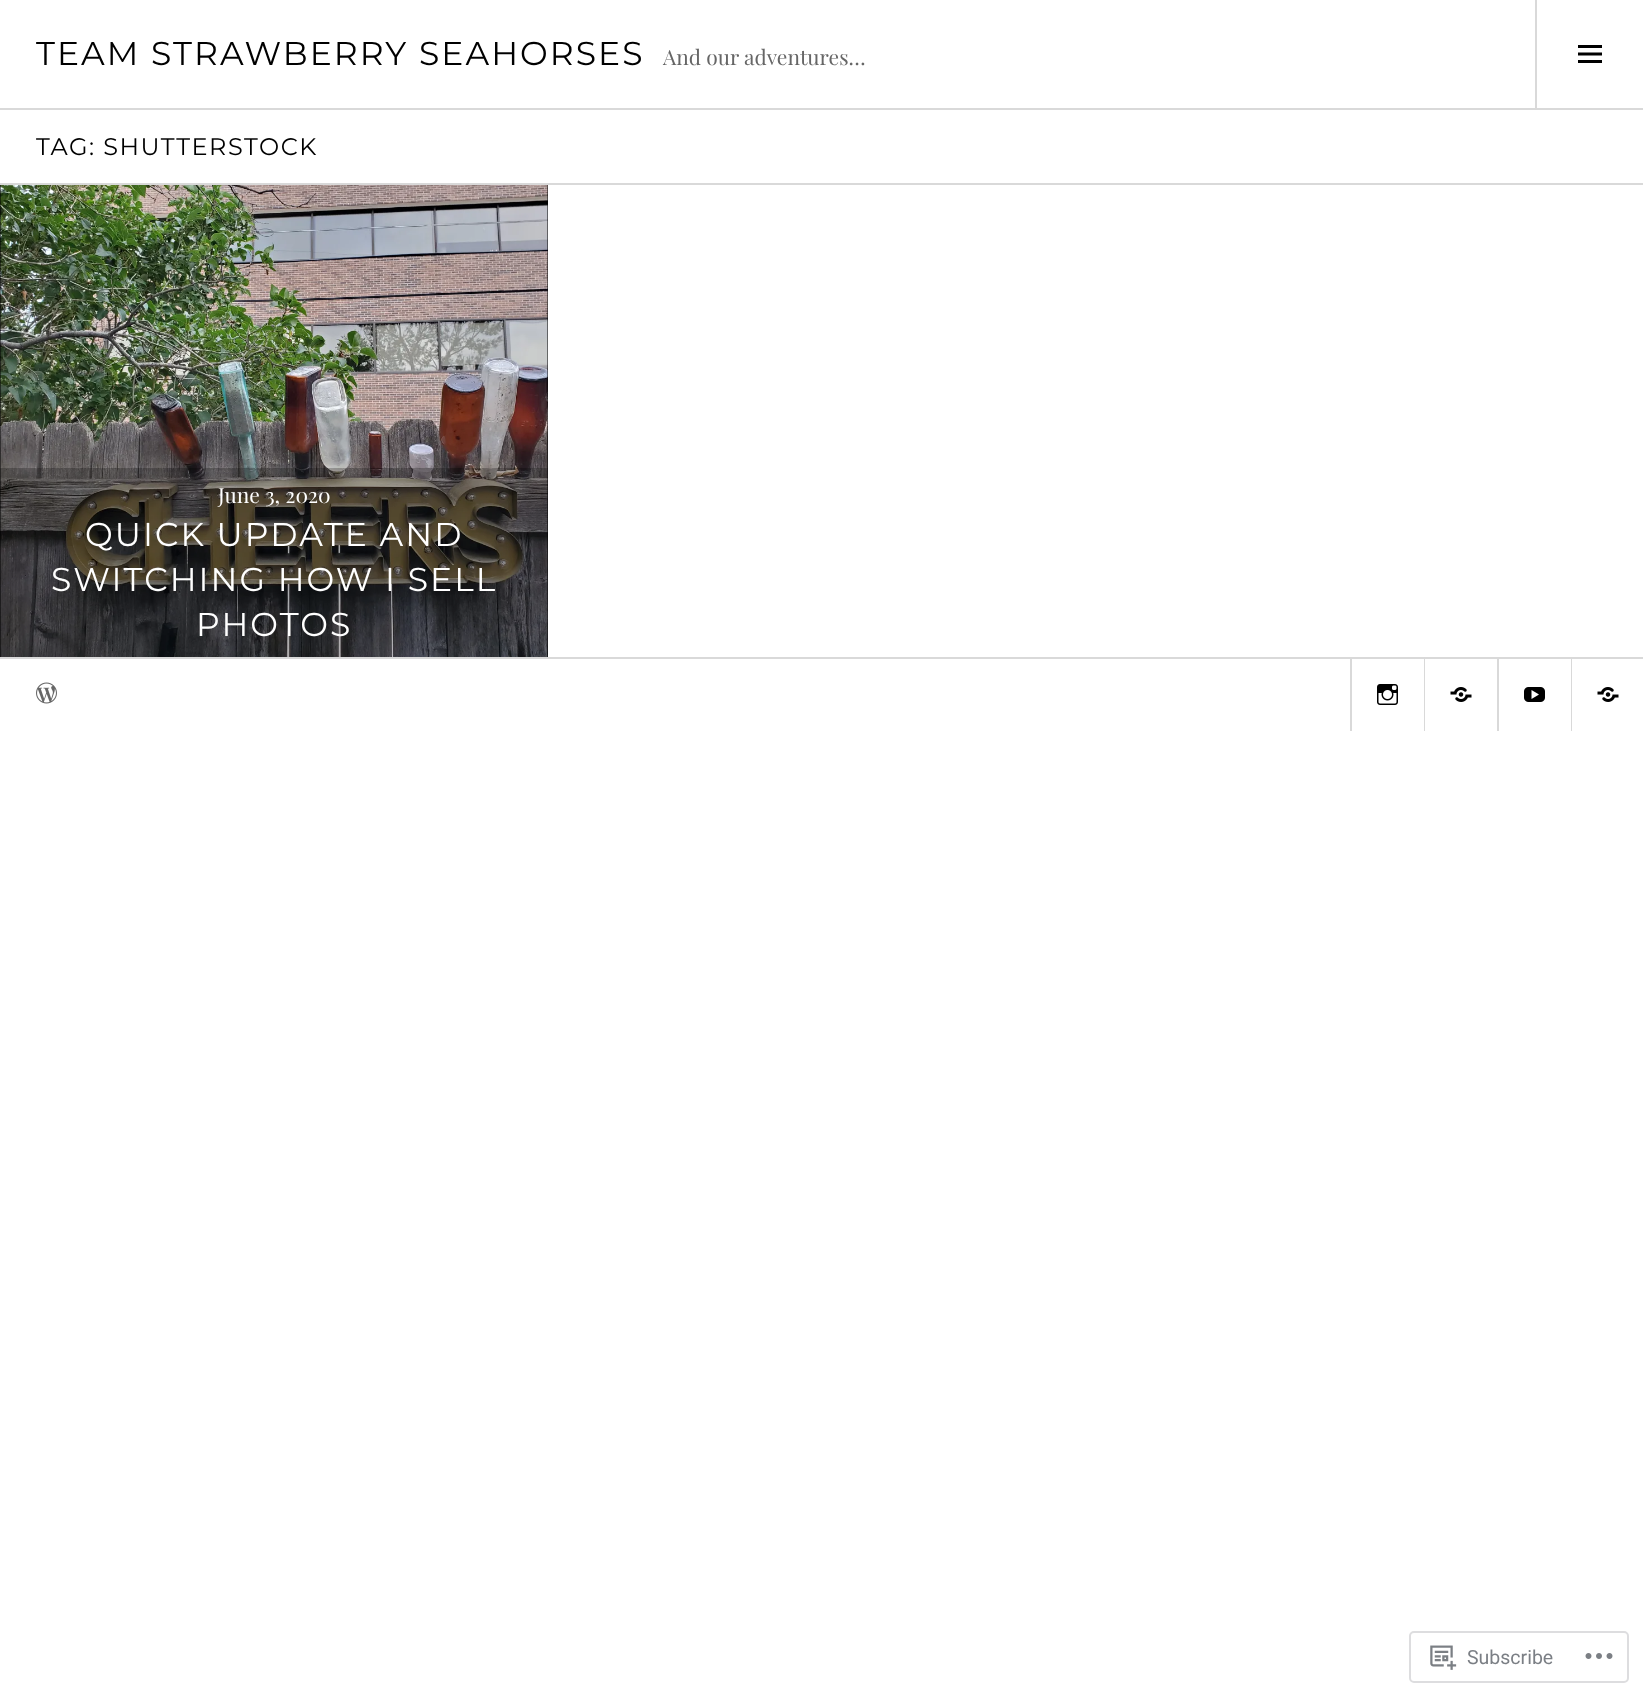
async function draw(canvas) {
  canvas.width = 1643;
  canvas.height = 1698;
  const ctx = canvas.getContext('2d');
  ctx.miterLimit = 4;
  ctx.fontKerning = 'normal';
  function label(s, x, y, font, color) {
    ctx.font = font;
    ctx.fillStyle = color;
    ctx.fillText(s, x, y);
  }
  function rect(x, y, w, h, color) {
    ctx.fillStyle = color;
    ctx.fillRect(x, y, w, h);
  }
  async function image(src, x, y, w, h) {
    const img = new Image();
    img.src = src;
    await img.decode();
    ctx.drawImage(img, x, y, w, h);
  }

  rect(0, 0, 1643, 1698, '#fff');
  rect(0, 108, 1643, 2, '#d9d9d9');
  ctx.letterSpacing = '2.05px';
  label('TEAM STRAWBERRY SEAHORSES', 36, 65, '33px Montserrat', '#000');
  ctx.letterSpacing = '0px';
  label('And our adventures…', 663, 65, '21px Playfair Display', '#666');
  rect(1535, 0, 2, 108, '#d9d9d9');
  await image('assets/img1.png', 1578, 45, 24, 18);
  rect(0, 183, 1643, 2, '#d9d9d9');
  ctx.letterSpacing = '1.5px';
  label('TAG: SHUTTERSTOCK', 36, 155, '24px Montserrat', '#000');
  rect(0, 185, 548, 472, '#000');
  await image('assets/img2.png', 0, 185, 548, 472);
  rect(0, 468, 548, 189, '#00000040');
  ctx.letterSpacing = '0px';
  label('June 3, 2020', 218, 503, '21px Playfair Display', '#fff');
  ctx.letterSpacing = '2.05px';
  label('QUICK UPDATE AND', 85, 546, '33px Montserrat', '#fff');
  label('SWITCHING HOW I SELL', 51, 591, '33px Montserrat', '#fff');
  label('PHOTOS', 196, 636, '33px Montserrat', '#fff');
  rect(0, 657, 1643, 2, '#d9d9d9');
  await image('assets/img3.png', 36, 682, 21, 22);
  ctx.save();
  ctx.beginPath();
  ctx.rect(0, 659, 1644, 72);
  ctx.clip();
  ctx.strokeStyle = '#d9d9d9';
  ctx.lineWidth = 2;
  ctx.strokeRect(1351, 658, 73, 73);
  ctx.restore();
  rect(1352, 659, 72, 72, '#fff');
  await image('assets/img4.png', 1377, 684, 21, 21);
  ctx.save();
  ctx.beginPath();
  ctx.rect(0, 659, 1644, 72);
  ctx.clip();
  ctx.strokeStyle = '#d9d9d9';
  ctx.lineWidth = 2;
  ctx.strokeRect(1425, 658, 73, 73);
  ctx.restore();
  rect(1425, 659, 72, 72, '#fff');
  await image('assets/img5.png', 1450, 687, 22, 15);
  ctx.save();
  ctx.beginPath();
  ctx.rect(0, 659, 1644, 72);
  ctx.clip();
  ctx.strokeStyle = '#d9d9d9';
  ctx.lineWidth = 2;
  ctx.strokeRect(1498, 658, 73, 73);
  ctx.restore();
  rect(1499, 659, 72, 72, '#fff');
  await image('assets/img6.png', 1524, 687, 21, 15);
  ctx.save();
  ctx.beginPath();
  ctx.rect(0, 659, 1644, 72);
  ctx.clip();
  ctx.strokeStyle = '#d9d9d9';
  ctx.lineWidth = 2;
  ctx.strokeRect(1572, 658, 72, 73);
  ctx.restore();
  rect(1572, 659, 71, 72, '#fff');
  await image('assets/img5.png', 1597, 687, 22, 15);
  ctx.beginPath();
  ctx.roundRect(1410, 1632, 218, 50, 4);
  ctx.strokeStyle = '#dddddf';
  ctx.lineWidth = 2;
  ctx.stroke();
  await image('assets/img7.png', 1430, 1645, 27, 25);
  ctx.letterSpacing = '0px';
  label('Subscribe', 1467, 1664, '19.5px Roboto', '#7b7f85');
  await image('assets/img8.png', 1585, 1653, 28, 6);
}

draw(document.querySelector('canvas'));
